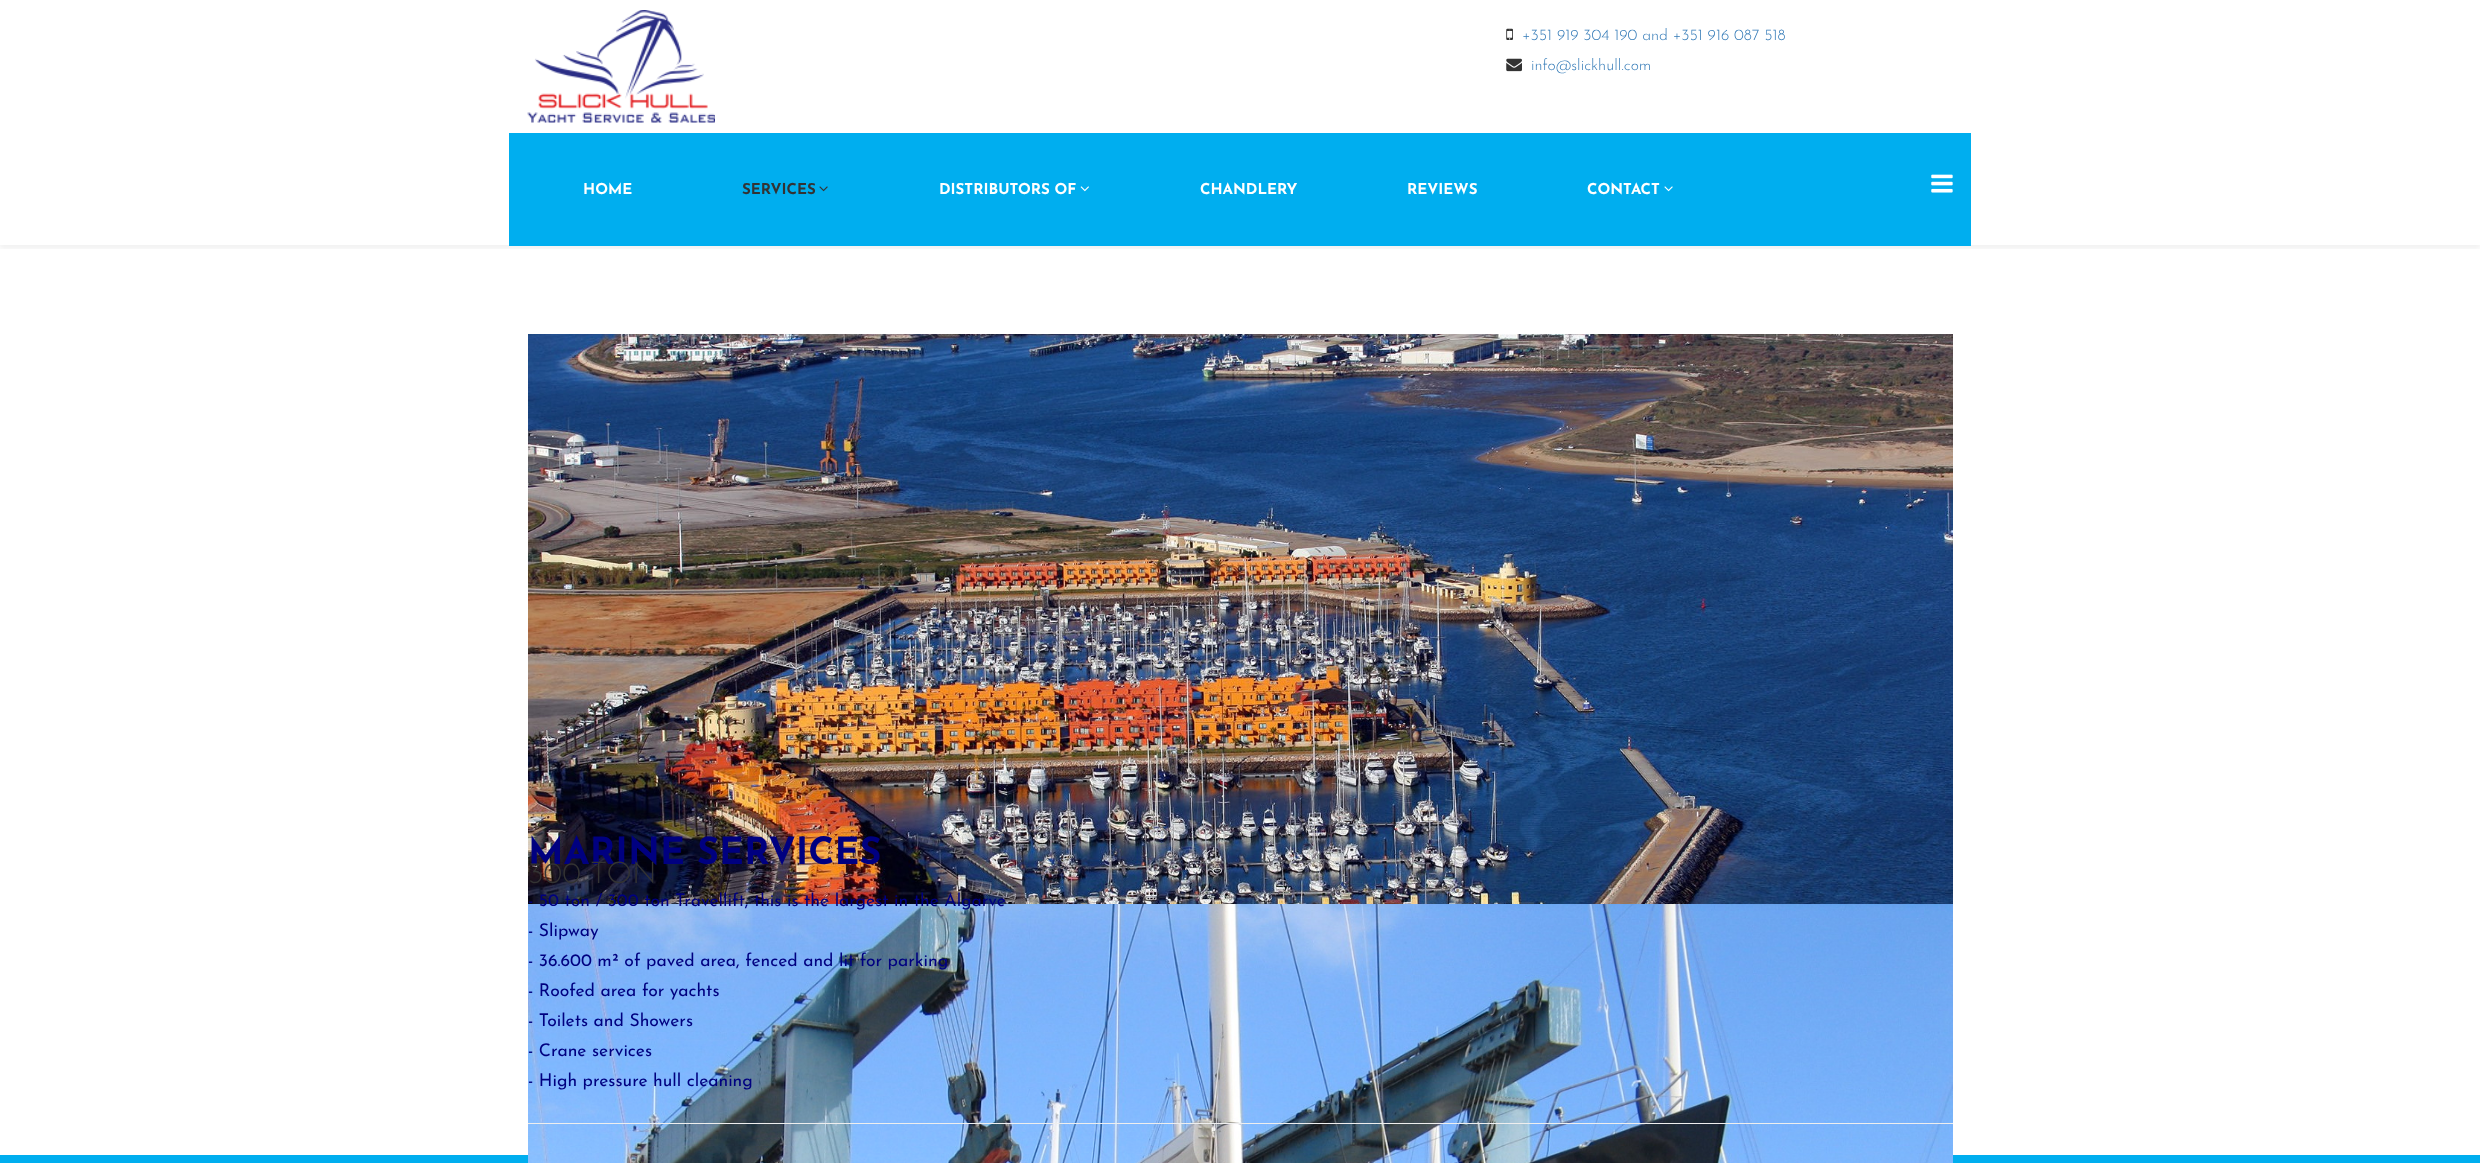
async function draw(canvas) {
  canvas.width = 2480;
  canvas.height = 1163;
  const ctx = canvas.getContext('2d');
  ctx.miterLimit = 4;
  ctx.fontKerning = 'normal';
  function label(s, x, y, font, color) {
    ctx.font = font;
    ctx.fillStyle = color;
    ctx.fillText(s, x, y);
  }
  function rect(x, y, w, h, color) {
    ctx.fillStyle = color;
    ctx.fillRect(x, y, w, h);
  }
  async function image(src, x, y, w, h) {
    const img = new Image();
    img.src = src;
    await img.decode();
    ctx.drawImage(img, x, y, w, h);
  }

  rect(0, 0, 2480, 1163, '#fff');
  await image('assets/img1.png', 527, 10, 188, 113);
  await image('assets/img2.png', 1506, 28, 7, 12);
  label('+351 919 304 190 and +351 916 087 518', 1522, 40, '300 15.75px Josefin Sans', '#337ab7');
  await image('assets/img3.png', 1506, 58, 16, 14);
  label('info@slickhull.com', 1531, 70, '300 15.75px Josefin Sans', '#337ab7');
  ctx.save();
  ctx.beginPath();
  ctx.rect(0, 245, 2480, 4);
  ctx.clip();
  ctx.fillStyle = '#0000000d';
  ctx.filter = 'blur(2px)';
  ctx.beginPath();
  ctx.rect(0, 136, 2480, 113);
  ctx.fill();
  ctx.filter = 'none';
  ctx.restore();
  rect(509, 133, 1462, 113, '#00aeef');
  label('HOME', 583, 194, 'bold 15px Josefin Sans', '#fff');
  label('SERVICES', 742, 194, 'bold 15px Josefin Sans', '#333');
  await image('assets/img4.png', 819, 186, 9, 6);
  label('DISTRIBUTORS OF', 939, 194, 'bold 15px Josefin Sans', '#fff');
  await image('assets/img5.png', 1080, 186, 9, 6);
  label('CHANDLERY', 1200, 194, 'bold 15px Josefin Sans', '#fff');
  label('REVIEWS', 1407, 194, 'bold 15px Josefin Sans', '#fff');
  label('CONTACT', 1587, 194, 'bold 15px Josefin Sans', '#fff');
  await image('assets/img6.png', 1664, 186, 9, 6);
  await image('assets/img7.png', 1931, 174, 22, 19);
  await image('assets/img8.png', 528, 334, 1425, 570);
  label('MARINE SERVICES', 528, 864, 'bold 37.5px Josefin Sans', '#000080');
  rect(0, 1155, 2480, 8, '#00aeef');
  await image('assets/img9.png', 528, 904, 1425, 259);
  label('- 50 ton / 300 ton Travellift, this is the largest in the Algarve', 528, 906, '17.5px Josefin Sans', '#000080');
  label('- Slipway', 528, 936, '17.5px Josefin Sans', '#000080');
  label('- 36.600 m² of paved area, fenced and lit for parking', 528, 966, '17.5px Josefin Sans', '#000080');
  label('- Roofed area for yachts', 528, 996, '17.5px Josefin Sans', '#000080');
  label('- Toilets and Showers', 528, 1026, '17.5px Josefin Sans', '#000080');
  label('- Crane services', 528, 1056, '17.5px Josefin Sans', '#000080');
  label('- High pressure hull cleaning', 528, 1086, '17.5px Josefin Sans', '#000080');
  label('300 TON', 528, 883, '300 30px Josefin Sans', '#333');
  rect(528, 1123, 1425, 1, '#eee');
}

draw(document.querySelector('canvas'));
